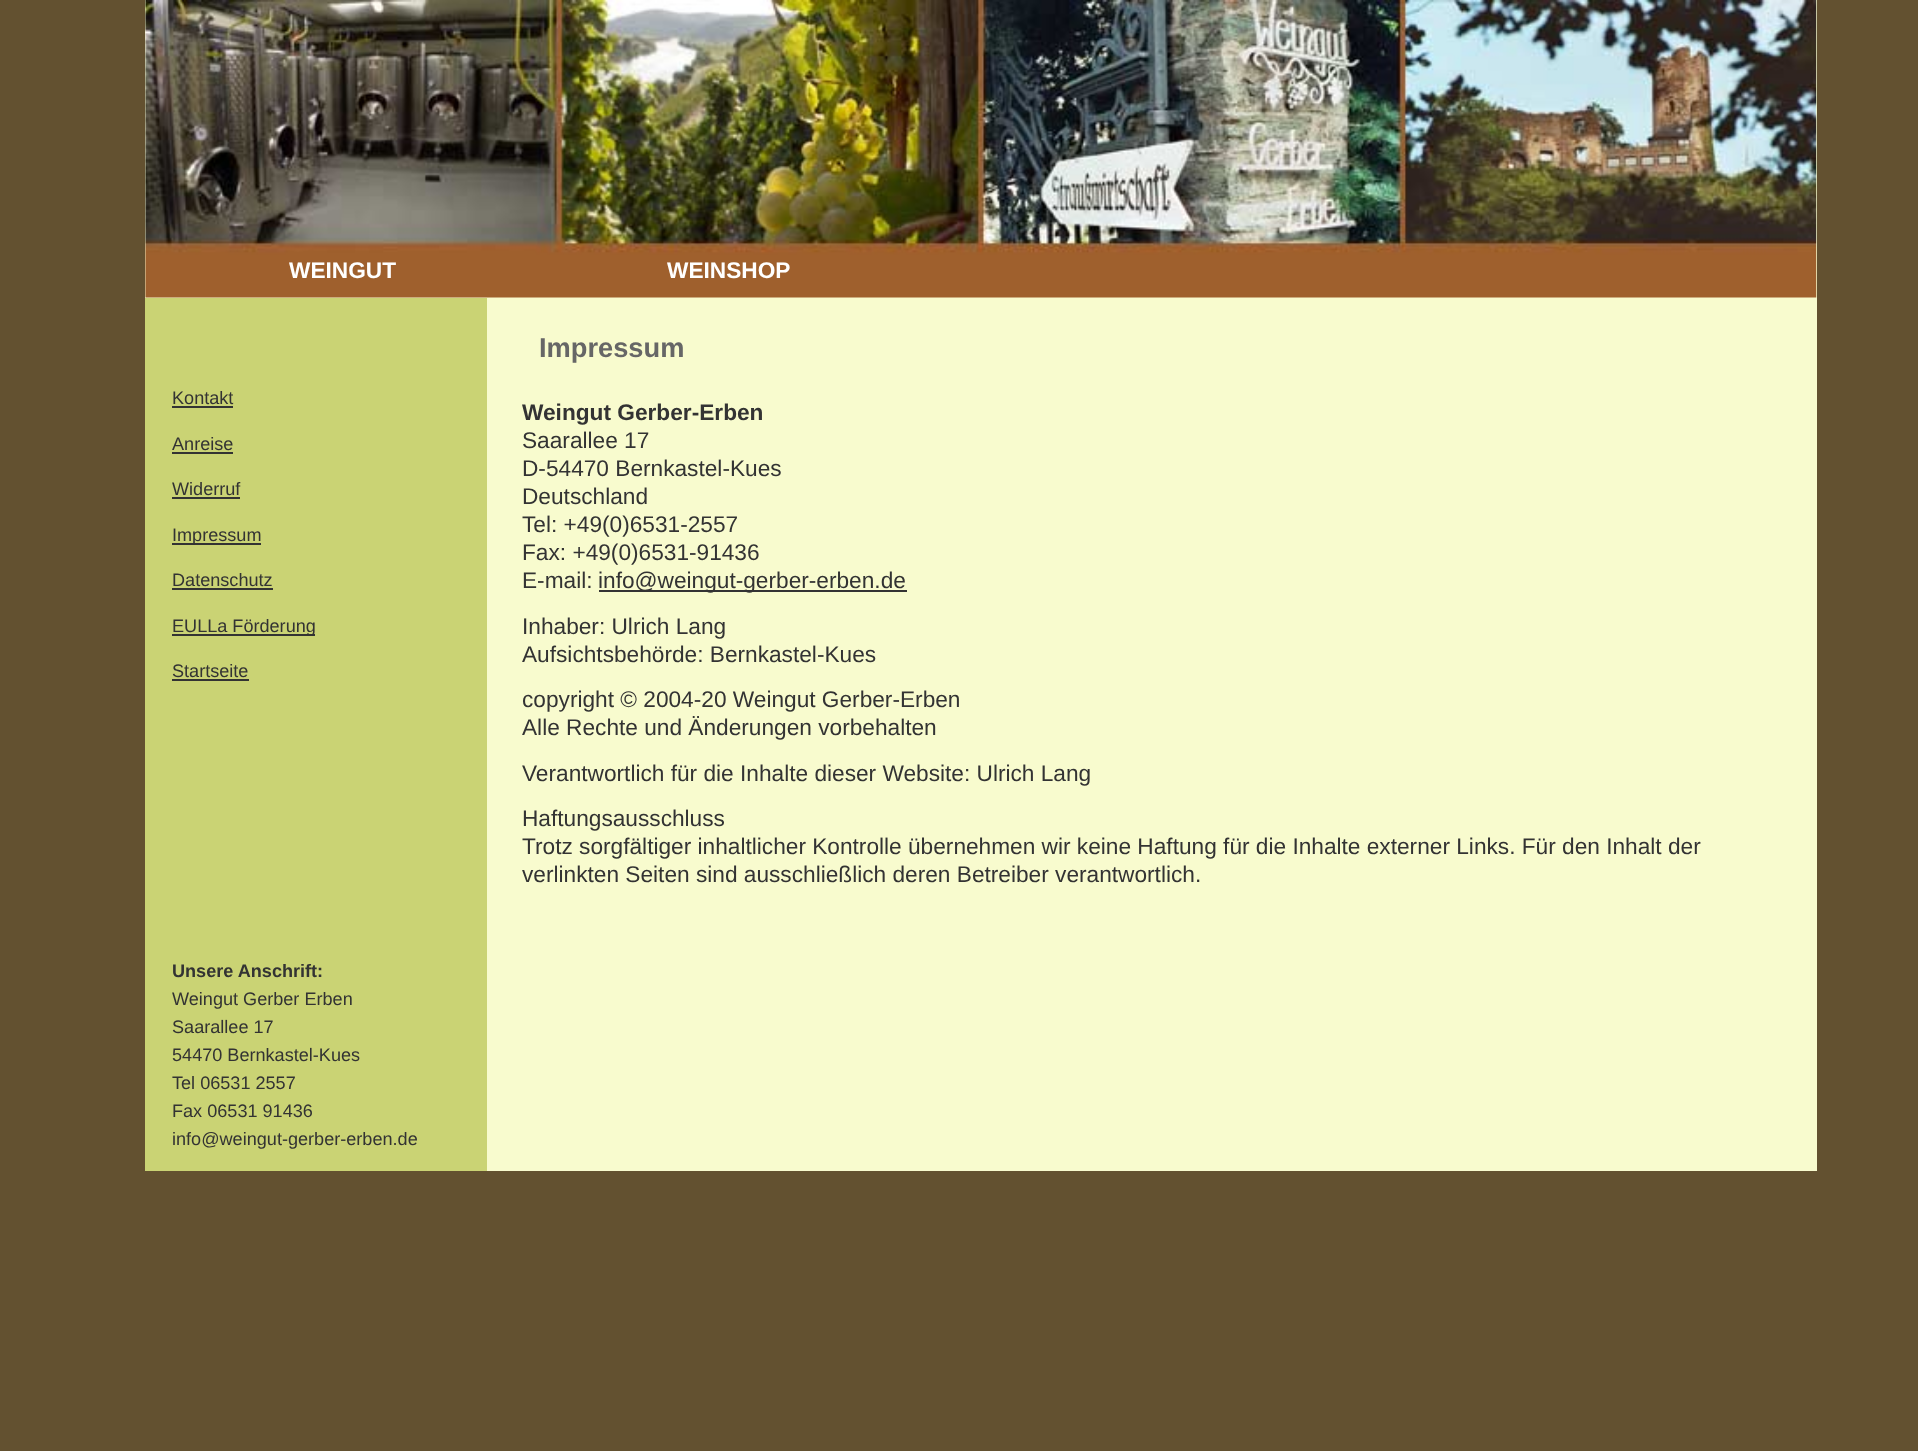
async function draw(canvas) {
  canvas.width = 1918;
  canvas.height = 1451;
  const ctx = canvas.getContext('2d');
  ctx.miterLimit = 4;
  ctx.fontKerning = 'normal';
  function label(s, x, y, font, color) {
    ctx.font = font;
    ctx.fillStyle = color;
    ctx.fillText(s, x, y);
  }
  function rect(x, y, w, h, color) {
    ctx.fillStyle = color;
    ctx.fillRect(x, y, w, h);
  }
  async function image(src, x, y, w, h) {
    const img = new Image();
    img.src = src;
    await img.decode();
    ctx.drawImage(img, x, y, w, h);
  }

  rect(0, 0, 1918, 1451, '#635130');
  rect(145, 0, 1672, 1171, '#f8fbce');
  await image('assets/img1.png', 145, 0, 1672, 298);
  label('WEINGUT', 289, 278, 'bold 22.68px Liberation Sans', '#fff');
  label('WEINSHOP', 667, 278, 'bold 22.68px Liberation Sans', '#fff');
  rect(145, 298, 342, 873, '#cad374');
  label('Kontakt', 172, 404, '18.1px Liberation Sans', '#333');
  rect(172, 406, 61, 2, '#333');
  label('Anreise', 172, 450, '18.1px Liberation Sans', '#333');
  rect(172, 452, 61, 2, '#333');
  label('Widerruf', 172, 495, '18.1px Liberation Sans', '#333');
  rect(172, 497, 68, 2, '#333');
  rect(172, 543, 89, 2, '#333');
  label('Impressum', 172, 541, '18.1px Liberation Sans', '#333');
  label('Datenschutz', 172, 586, '18.1px Liberation Sans', '#333');
  rect(172, 588, 101, 2, '#333');
  rect(172, 634, 143, 2, '#333');
  label('EULLa Förderung', 172, 632, '18.1px Liberation Sans', '#333');
  label('Startseite', 172, 677, '18.1px Liberation Sans', '#333');
  rect(172, 679, 77, 2, '#333');
  label('Unsere Anschrift:', 172, 977, 'bold 18.1px Liberation Sans', '#333');
  label('Weingut Gerber Erben', 172, 1005, '18.1px Liberation Sans', '#333');
  label('Saarallee 17', 172, 1033, '18.1px Liberation Sans', '#333');
  label('54470 Bernkastel-Kues', 172, 1061, '18.1px Liberation Sans', '#333');
  label('Tel 06531 2557', 172, 1089, '18.1px Liberation Sans', '#333');
  label('Fax 06531 91436', 172, 1117, '18.1px Liberation Sans', '#333');
  label('info@weingut-gerber-erben.de', 172, 1145, '18.1px Liberation Sans', '#333');
  label('Impressum', 539, 357, 'bold 27.25px Liberation Sans', '#666');
  label('Weingut Gerber-Erben', 522, 420, 'bold 22.68px Liberation Sans', '#333');
  label('Saarallee 17', 522, 448, '22.68px Liberation Sans', '#333');
  label('D-54470 Bernkastel-Kues', 522, 476, '22.68px Liberation Sans', '#333');
  label('Deutschland', 522, 504, '22.68px Liberation Sans', '#333');
  label('Tel: +49(0)6531-2557', 522, 532, '22.68px Liberation Sans', '#333');
  label('Fax: +49(0)6531-91436', 522, 560, '22.68px Liberation Sans', '#333');
  label('E-mail:', 522, 588, '22.68px Liberation Sans', '#333');
  rect(599, 590, 308, 2, '#333');
  label('info@weingut-gerber-erben.de', 598, 588, '22.68px Liberation Sans', '#333');
  label('Inhaber: Ulrich Lang', 522, 634, '22.68px Liberation Sans', '#333');
  label('Aufsichtsbehörde: Bernkastel-Kues', 522, 662, '22.68px Liberation Sans', '#333');
  label('copyright © 2004-20 Weingut Gerber-Erben', 522, 707, '22.68px Liberation Sans', '#333');
  label('Alle Rechte und Änderungen vorbehalten', 522, 735, '22.68px Liberation Sans', '#333');
  label('Verantwortlich für die Inhalte dieser Website: Ulrich Lang', 522, 781, '22.68px Liberation Sans', '#333');
  label('Haftungsausschluss', 522, 826, '22.68px Liberation Sans', '#333');
  label('Trotz sorgfältiger inhaltlicher Kontrolle übernehmen wir keine Haftung für die Inhalte externer Links. Für den Inhalt der', 522, 854, '22.68px Liberation Sans', '#333');
  label('verlinkten Seiten sind ausschließlich deren Betreiber verantwortlich.', 522, 882, '22.68px Liberation Sans', '#333');
}

draw(document.querySelector('canvas'));
